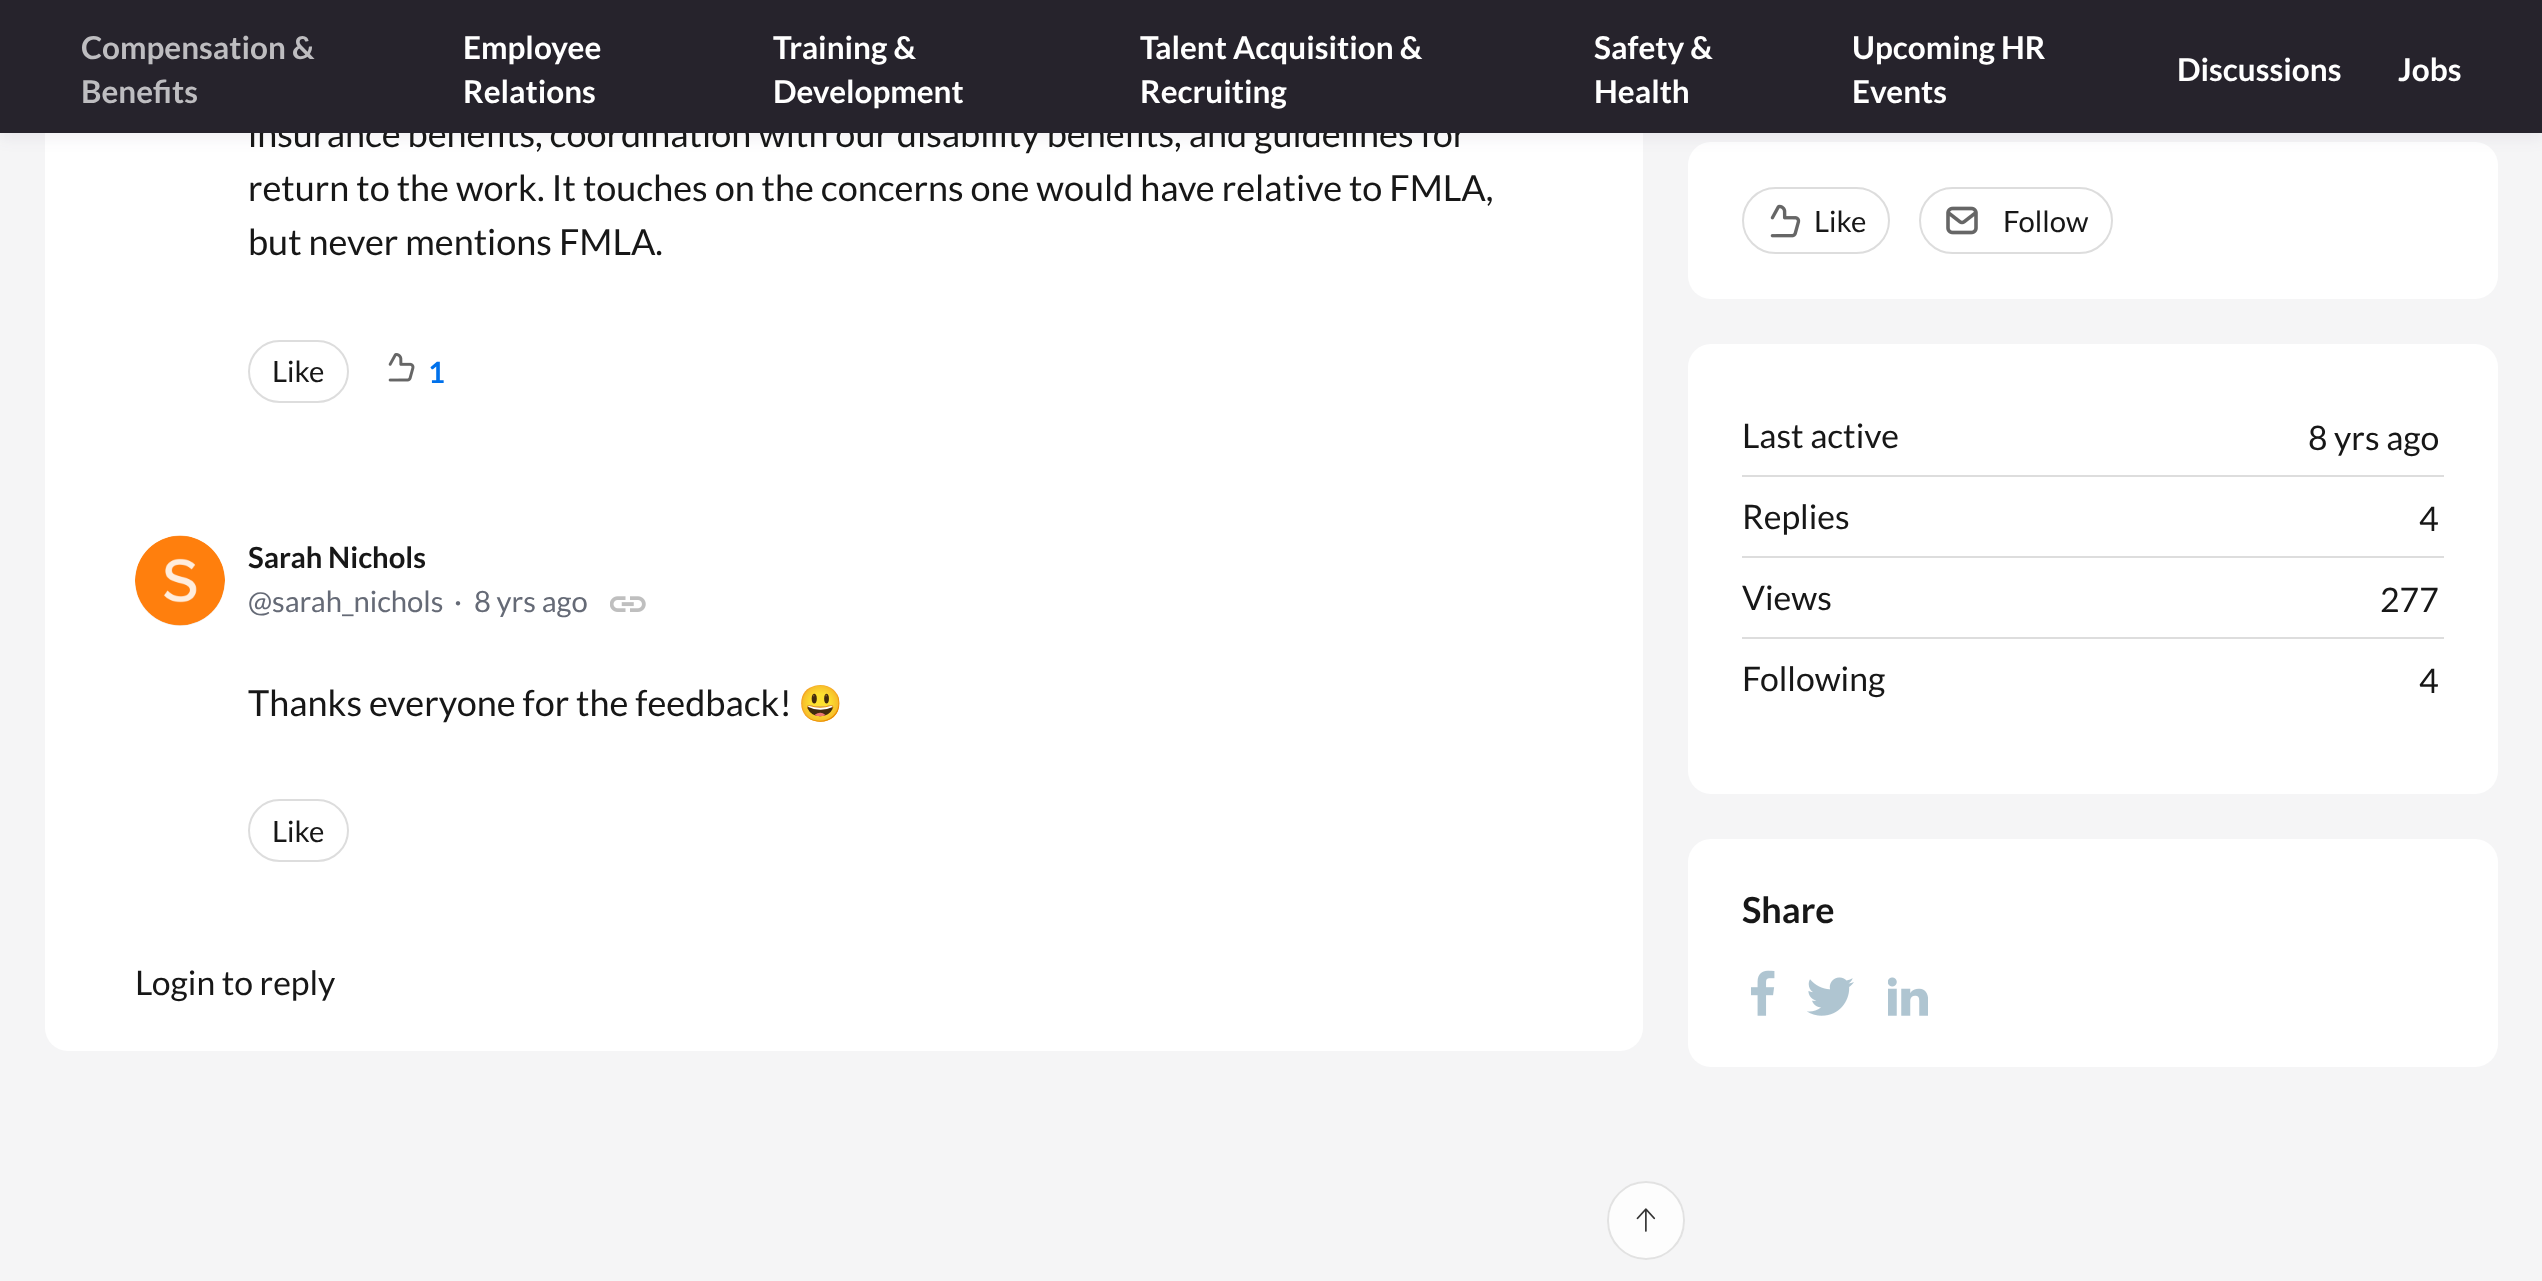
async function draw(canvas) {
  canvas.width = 2542;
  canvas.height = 1281;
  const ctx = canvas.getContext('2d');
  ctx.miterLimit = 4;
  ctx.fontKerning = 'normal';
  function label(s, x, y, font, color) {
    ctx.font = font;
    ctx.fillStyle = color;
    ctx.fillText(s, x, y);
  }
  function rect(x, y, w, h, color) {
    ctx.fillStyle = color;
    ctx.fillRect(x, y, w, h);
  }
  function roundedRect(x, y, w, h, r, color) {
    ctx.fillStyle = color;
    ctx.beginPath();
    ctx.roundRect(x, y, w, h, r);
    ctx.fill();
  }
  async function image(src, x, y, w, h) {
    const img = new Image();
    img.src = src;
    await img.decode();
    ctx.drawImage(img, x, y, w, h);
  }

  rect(0, 0, 2542, 1281, '#f5f5f6');
  roundedRect(45, -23, 1598, 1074, 23, '#fff');
  roundedRect(1688, 142, 810, 157, 23, '#fff');
  ctx.fillStyle = '#3e396b0f';
  ctx.filter = 'blur(7px)';
  ctx.beginPath();
  ctx.rect(0, 7, 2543, 133);
  ctx.fill();
  ctx.filter = 'none';
  label('insurance benefits, coordination with our disability benefits, and guidelines for', 248, 147, '36px Lato', '#171717');
  rect(0, 0, 2542, 133, '#26232c');
  label('Compensation &', 81, 59, 'bold 31.5px Lato', '#bebdc0');
  label('Benefits', 81, 103, 'bold 31.5px Lato', '#bebdc0');
  label('Employee', 463, 59, 'bold 31.5px Lato', '#fff');
  label('Relations', 463, 103, 'bold 31.5px Lato', '#fff');
  label('Training &', 773, 59, 'bold 31.5px Lato', '#fff');
  label('Development', 773, 103, 'bold 31.5px Lato', '#fff');
  label('Talent Acquisition &', 1140, 59, 'bold 31.5px Lato', '#fff');
  label('Recruiting', 1140, 103, 'bold 31.5px Lato', '#fff');
  label('Safety &', 1594, 59, 'bold 31.5px Lato', '#fff');
  label('Health', 1594, 103, 'bold 31.5px Lato', '#fff');
  label('Upcoming HR', 1852, 59, 'bold 31.5px Lato', '#fff');
  label('Events', 1852, 103, 'bold 31.5px Lato', '#fff');
  label('Discussions', 2177, 81, 'bold 31.5px Lato', '#fff');
  label('Jobs', 2398, 81, 'bold 31.5px Lato', '#fff');
  label('return to the work. It touches on the concerns one would have relative to FMLA,', 248, 201, '36px Lato', '#171717');
  label('but never mentions FMLA.', 248, 255, '36px Lato', '#171717');
  ctx.beginPath();
  ctx.roundRect(249, 341, 99, 61, 30.5);
  ctx.strokeStyle = '#ddd';
  ctx.lineWidth = 2;
  ctx.stroke();
  label('Like', 272, 382, '29.25px Lato', '#171717');
  await image('assets/img1.png', 388, 353, 27, 29);
  label('1', 428, 383, 'bold 29.25px Lato', '#0071eb');
  ctx.fillStyle = '#efefef';
  ctx.beginPath();
  ctx.arc(180, 581, 45, 0, 2 * Math.PI);
  ctx.fill();
  await image('assets/img2.png', 135, 535, 90, 91);
  label('Sarah Nichols', 248, 568, 'bold 29.25px Lato', '#171717');
  label('@sarah_nichols', 248, 612, '29.25px Lato', '#656a76');
  label('·', 454, 612, '29.25px Lato', '#656a76');
  label('8 yrs ago', 474, 612, '29.25px Lato', '#656a76');
  await image('assets/img3.png', 610, 596, 36, 16);
  label('Thanks everyone for the feedback!', 248, 716, '36px Lato', '#171717');
  label('😃', 798, 716, '36px Noto Color Emoji', '#171717');
  ctx.beginPath();
  ctx.roundRect(249, 800, 99, 61, 30.5);
  ctx.stroke();
  label('Like', 272, 842, '29.25px Lato', '#171717');
  label('Login to reply', 135, 995, '33.75px Lato', '#171717');
  roundedRect(1607, 1181, 78, 79, 39, '#fdfdfd');
  await image('assets/img4.png', 1636, 1208, 20, 24);
  ctx.beginPath();
  ctx.roundRect(1608, 1182, 76, 77, 38);
  ctx.strokeStyle = '#e2e2e2';
  ctx.stroke();
  ctx.beginPath();
  ctx.roundRect(1743, 188, 146, 65, 32.5);
  ctx.strokeStyle = '#ddd';
  ctx.stroke();
  await image('assets/img5.png', 1770, 204, 31, 34);
  label('Like', 1814, 232, '29.25px Lato', '#171717');
  ctx.beginPath();
  ctx.roundRect(1920, 188, 192, 65, 32.5);
  ctx.stroke();
  await image('assets/img6.png', 1946, 206, 32, 29);
  label('Follow', 2003, 232, '29.25px Lato', '#171717');
  roundedRect(1688, 344, 810, 450, 23, '#fff');
  label('Last active', 1742, 448, '33.75px Lato', '#171717');
  label('8 yrs ago', 2308, 450, '33.75px Lato', '#171717');
  rect(1742, 475, 702, 2, '#ddd');
  label('Replies', 1742, 529, '33.75px Lato', '#171717');
  label('4', 2419, 531, '33.75px Lato', '#171717');
  rect(1742, 556, 702, 2, '#ddd');
  label('Views', 1742, 610, '33.75px Lato', '#171717');
  label('277', 2380, 612, '33.75px Lato', '#171717');
  rect(1742, 637, 702, 2, '#ddd');
  label('Following', 1742, 691, '33.75px Lato', '#171717');
  label('4', 2419, 693, '33.75px Lato', '#171717');
  roundedRect(1688, 839, 810, 228, 23, '#fff');
  label('Share', 1742, 923, 'bold 36px Lato', '#171717');
  await image('assets/img7.png', 1751, 970, 24, 46);
  await image('assets/img8.png', 1807, 977, 47, 39);
  await image('assets/img9.png', 1888, 977, 40, 39);
}

draw(document.querySelector('canvas'));
